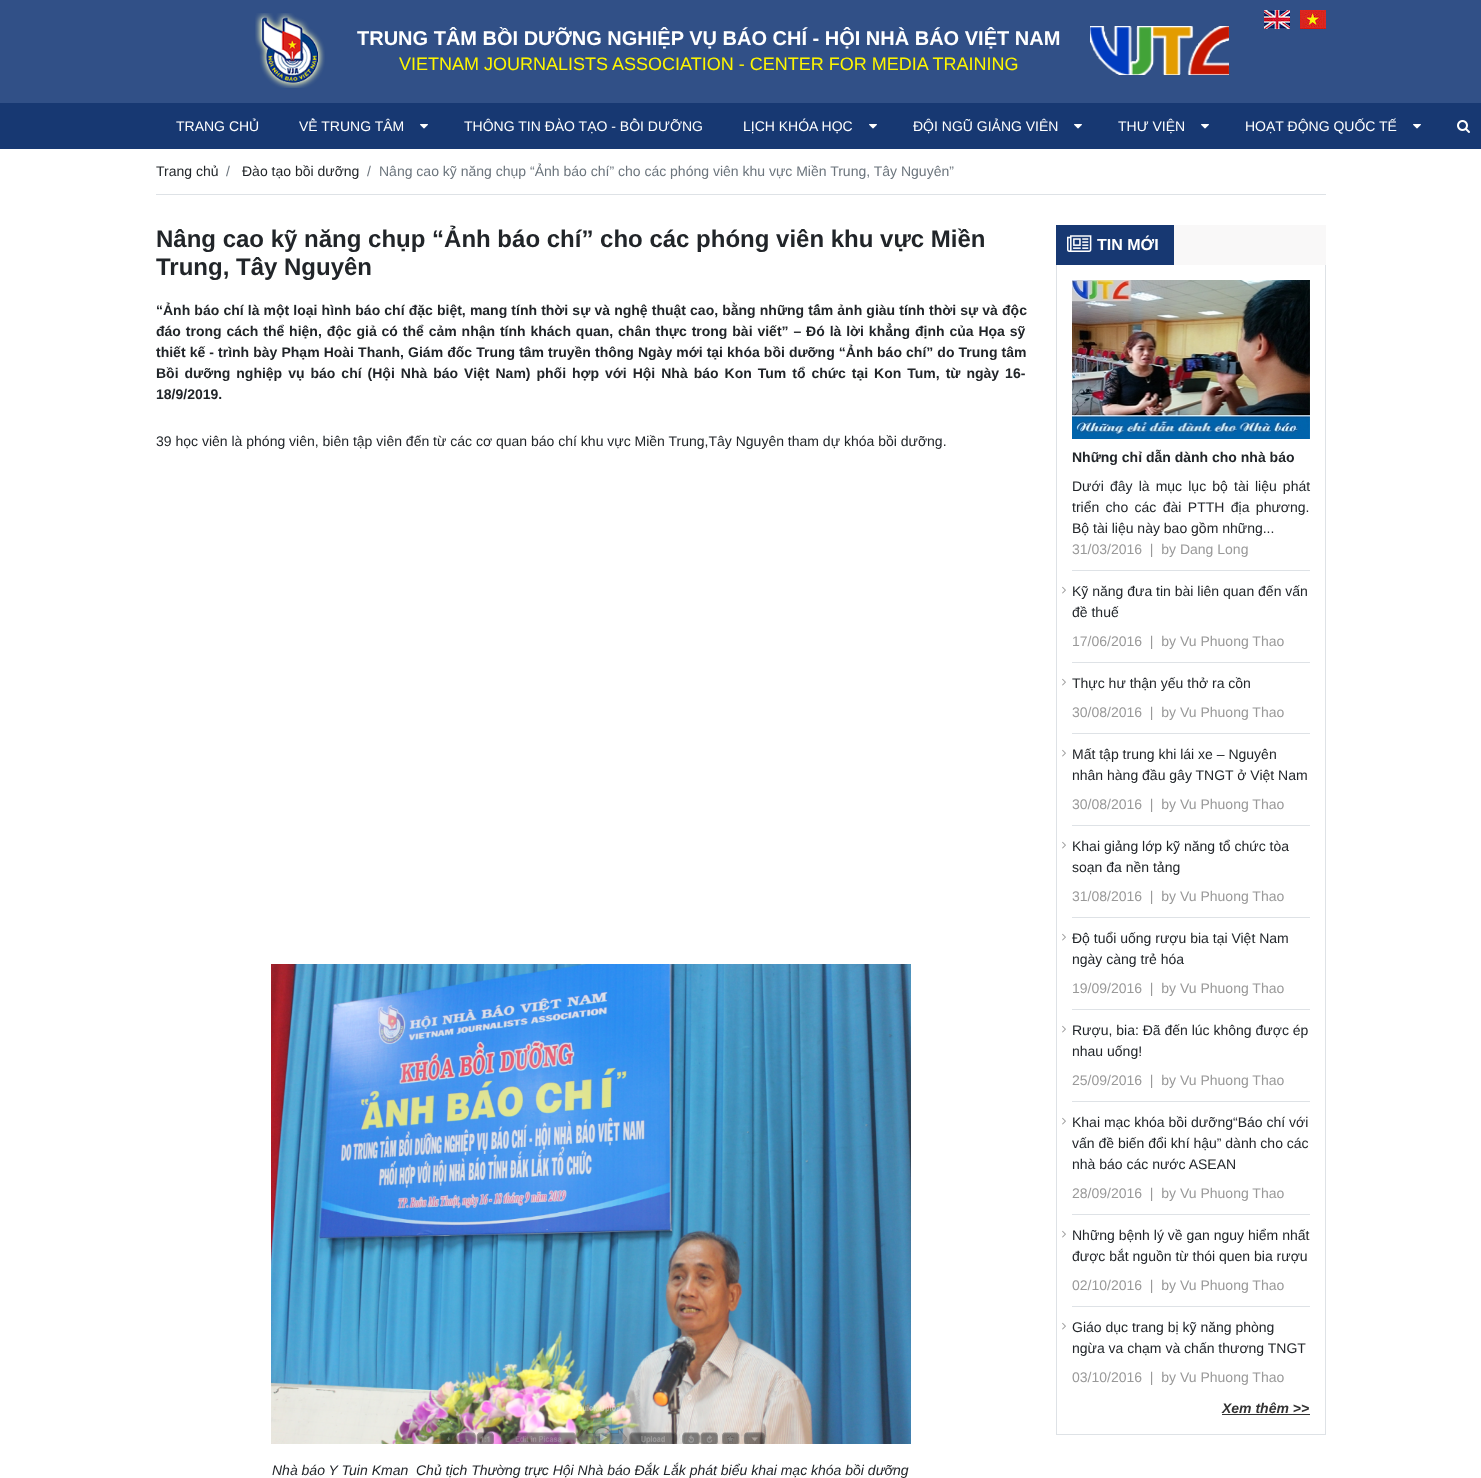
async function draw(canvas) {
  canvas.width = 1481;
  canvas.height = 1478;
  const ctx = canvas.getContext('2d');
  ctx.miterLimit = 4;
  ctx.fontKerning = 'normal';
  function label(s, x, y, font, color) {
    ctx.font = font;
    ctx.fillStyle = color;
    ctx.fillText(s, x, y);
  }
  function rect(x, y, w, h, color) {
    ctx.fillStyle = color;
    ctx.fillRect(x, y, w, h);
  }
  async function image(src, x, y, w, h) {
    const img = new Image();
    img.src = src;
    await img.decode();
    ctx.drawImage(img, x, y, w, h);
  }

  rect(0, 0, 1481, 1478, '#fff');
  rect(0, 0, 1481, 103, '#315087');
  await image('assets/img1.png', 255, 13, 70, 75);
  label('TRUNG TÂM BỒI DƯỠNG NGHIỆP VỤ BÁO CHÍ - HỘI NHÀ BÁO VIỆT NAM', 357, 45, 'bold 20px Liberation Sans', '#fff');
  label('VIETNAM JOURNALISTS ASSOCIATION - CENTER FOR MEDIA TRAINING', 399, 70, '18px Liberation Sans', '#fff600');
  await image('assets/img2.png', 1090, 26, 139, 49);
  await image('assets/img3.png', 1264, 10, 26, 19);
  await image('assets/img4.png', 1300, 10, 26, 19);
  rect(0, 103, 1481, 46, '#173872');
  label('TRANG CHỦ', 176, 131, '14px Liberation Sans', '#fff');
  label('VỀ TRUNG TÂM', 299, 131, '14px Liberation Sans', '#fff');
  await image('assets/img5.png', 420, 124, 8, 5);
  label('THÔNG TIN ĐÀO TẠO - BỒI DƯỠNG', 464, 131, '14px Liberation Sans', '#fff');
  label('LỊCH KHÓA HỌC', 743, 131, '14px Liberation Sans', '#fff');
  await image('assets/img5.png', 869, 124, 8, 5);
  label('ĐỘI NGŨ GIẢNG VIÊN', 913, 131, '14px Liberation Sans', '#fff');
  await image('assets/img5.png', 1074, 124, 8, 5);
  label('THƯ VIỆN', 1118, 131, '14px Liberation Sans', '#fff');
  await image('assets/img5.png', 1201, 124, 8, 5);
  label('HOẠT ĐỘNG QUỐC TẾ', 1245, 131, '14px Liberation Sans', '#fff');
  await image('assets/img5.png', 1413, 124, 8, 5);
  await image('assets/img6.png', 1457, 120, 13, 13);
  rect(156, 194, 1170, 1, '#dee2e6');
  label('Trang chủ', 156, 176, '14px Liberation Sans', '#212529');
  label('/', 226, 176, '14px Liberation Sans', '#6c757d');
  label('Đào tạo bồi dưỡng', 242, 176, '14px Liberation Sans', '#212529');
  label('/', 367, 176, '14px Liberation Sans', '#6c757d');
  label('Nâng cao kỹ năng chụp “Ảnh báo chí” cho các phóng viên khu vực Miền Trung, Tây Nguyên”', 379, 176, '14px Liberation Sans', '#6c757d');
  label('Nâng cao kỹ năng chụp “Ảnh báo chí” cho các phóng viên khu vực Miền', 156, 247, 'bold 24px Liberation Sans', '#212529');
  label('Trung, Tây Nguyên', 156, 275, 'bold 24px Liberation Sans', '#212529');
  ctx.wordSpacing = '0.25px';
  label('“Ảnh báo chí là một loại hình báo chí đặc biệt, mang tính thời sự và nghệ thuật cao, bằng những tấm ảnh giàu tính thời sự và độc', 156, 315, 'bold 14px Liberation Sans', '#212529');
  ctx.wordSpacing = '1px';
  label('đáo trong cách thể hiện, độc giả có thể cảm nhận tính khách quan, chân thực trong bài viết” – Đó là lời khẳng định của Họa sỹ', 156, 336, 'bold 14px Liberation Sans', '#212529');
  ctx.wordSpacing = '0.2px';
  label('thiết kế - trình bày Phạm Hoài Thanh, Giám đốc Trung tâm truyền thông Ngày mới tại khóa bồi dưỡng “Ảnh báo chí” do Trung tâm', 156, 357, 'bold 14px Liberation Sans', '#212529');
  ctx.wordSpacing = '2.1px';
  label('Bồi dưỡng nghiệp vụ báo chí (Hội Nhà báo Việt Nam) phối hợp với Hội Nhà báo Kon Tum tổ chức tại Kon Tum, từ ngày 16-', 156, 378, 'bold 14px Liberation Sans', '#212529');
  ctx.wordSpacing = '0px';
  label('18/9/2019.', 156, 399, 'bold 14px Liberation Sans', '#212529');
  label('39 học viên là phóng viên, biên tập viên đến từ các cơ quan báo chí khu vực Miền Trung,Tây Nguyên tham dự khóa bồi dưỡng.', 156, 446, '14px Liberation Sans', '#212529');
  await image('assets/img7.png', 271, 964, 640, 480);
  label('Nhà báo Y Tuin Kman  Chủ tịch Thường trực Hội Nhà báo Đắk Lắk phát biểu khai mạc khóa bồi dưỡng', 272, 1475, 'italic 14px Liberation Sans', '#212529');
  rect(1174, 225, 152, 40, '#f9f8f8');
  rect(1056, 225, 118, 40, '#173872');
  await image('assets/img8.png', 1067, 235, 25, 17);
  label('TIN MỚI', 1097, 250, 'bold 16px Liberation Sans', '#fff');
  rect(1325, 265, 1, 1170, '#dee2e6');
  rect(1056, 1434, 270, 1, '#dee2e6');
  rect(1056, 265, 1, 1170, '#dee2e6');
  rect(1072, 570, 238, 1, '#dee2e6');
  await image('assets/img9.png', 1072, 280, 238, 159);
  label('Những chỉ dẫn dành cho nhà báo', 1072, 462, 'bold 14px Liberation Sans', '#212529');
  ctx.wordSpacing = '2.25px';
  label('Dưới đây là mục lục bộ tài liệu phát', 1072, 491, '14px Liberation Sans', '#212529');
  ctx.wordSpacing = '2.5px';
  label('triển cho các đài PTTH địa phương.', 1072, 512, '14px Liberation Sans', '#212529');
  ctx.wordSpacing = '0px';
  label('Bộ tài liệu này bao gồm những...', 1072, 533, '14px Liberation Sans', '#212529');
  label('31/03/2016  |  by Dang Long', 1072, 554, '14px Liberation Sans', '#999');
  rect(1072, 662, 238, 1, '#dee2e6');
  await image('assets/img10.png', 1062, 586, 4, 8);
  label('Kỹ năng đưa tin bài liên quan đến vấn', 1072, 596, '14px Liberation Sans', '#212529');
  label('đề thuế', 1072, 617, '14px Liberation Sans', '#212529');
  label('17/06/2016  |  by Vu Phuong Thao', 1072, 646, '14px Liberation Sans', '#999');
  rect(1072, 733, 238, 1, '#dee2e6');
  await image('assets/img10.png', 1062, 678, 4, 8);
  label('Thực hư thận yếu thở ra cồn', 1072, 688, '14px Liberation Sans', '#212529');
  label('30/08/2016  |  by Vu Phuong Thao', 1072, 717, '14px Liberation Sans', '#999');
  rect(1072, 825, 238, 1, '#dee2e6');
  await image('assets/img10.png', 1062, 749, 4, 8);
  label('Mất tập trung khi lái xe – Nguyên', 1072, 759, '14px Liberation Sans', '#212529');
  label('nhân hàng đầu gây TNGT ở Việt Nam', 1072, 780, '14px Liberation Sans', '#212529');
  label('30/08/2016  |  by Vu Phuong Thao', 1072, 809, '14px Liberation Sans', '#999');
  rect(1072, 917, 238, 1, '#dee2e6');
  await image('assets/img10.png', 1062, 841, 4, 8);
  label('Khai giảng lớp kỹ năng tổ chức tòa', 1072, 851, '14px Liberation Sans', '#212529');
  label('soạn đa nền tảng', 1072, 872, '14px Liberation Sans', '#212529');
  label('31/08/2016  |  by Vu Phuong Thao', 1072, 901, '14px Liberation Sans', '#999');
  rect(1072, 1009, 238, 1, '#dee2e6');
  await image('assets/img10.png', 1062, 933, 4, 8);
  label('Độ tuổi uống rượu bia tại Việt Nam', 1072, 943, '14px Liberation Sans', '#212529');
  label('ngày càng trẻ hóa', 1072, 964, '14px Liberation Sans', '#212529');
  label('19/09/2016  |  by Vu Phuong Thao', 1072, 993, '14px Liberation Sans', '#999');
  rect(1072, 1101, 238, 1, '#dee2e6');
  await image('assets/img10.png', 1062, 1025, 4, 8);
  label('Rượu, bia: Đã đến lúc không được ép', 1072, 1035, '14px Liberation Sans', '#212529');
  label('nhau uống!', 1072, 1056, '14px Liberation Sans', '#212529');
  label('25/09/2016  |  by Vu Phuong Thao', 1072, 1085, '14px Liberation Sans', '#999');
  rect(1072, 1214, 238, 1, '#dee2e6');
  await image('assets/img10.png', 1062, 1117, 4, 8);
  label('Khai mạc khóa bồi dưỡng“Báo chí với', 1072, 1127, '14px Liberation Sans', '#212529');
  label('vấn đề biến đổi khí hậu” dành cho các', 1072, 1148, '14px Liberation Sans', '#212529');
  label('nhà báo các nước ASEAN', 1072, 1169, '14px Liberation Sans', '#212529');
  label('28/09/2016  |  by Vu Phuong Thao', 1072, 1198, '14px Liberation Sans', '#999');
  rect(1072, 1306, 238, 1, '#dee2e6');
  await image('assets/img10.png', 1062, 1230, 4, 8);
  label('Những bệnh lý về gan nguy hiểm nhất', 1072, 1240, '14px Liberation Sans', '#212529');
  label('được bắt nguồn từ thói quen bia rượu', 1072, 1261, '14px Liberation Sans', '#212529');
  label('02/10/2016  |  by Vu Phuong Thao', 1072, 1290, '14px Liberation Sans', '#999');
  await image('assets/img10.png', 1062, 1322, 4, 8);
  label('Giáo dục trang bị kỹ năng phòng', 1072, 1332, '14px Liberation Sans', '#212529');
  label('ngừa va chạm và chấn thương TNGT', 1072, 1353, '14px Liberation Sans', '#212529');
  label('03/10/2016  |  by Vu Phuong Thao', 1072, 1382, '14px Liberation Sans', '#999');
  label('Xem thêm >>', 1222, 1413, 'italic bold 14px Liberation Sans', '#333');
  rect(1222, 1414, 88, 1, '#333');
}

draw(document.querySelector('canvas'));
